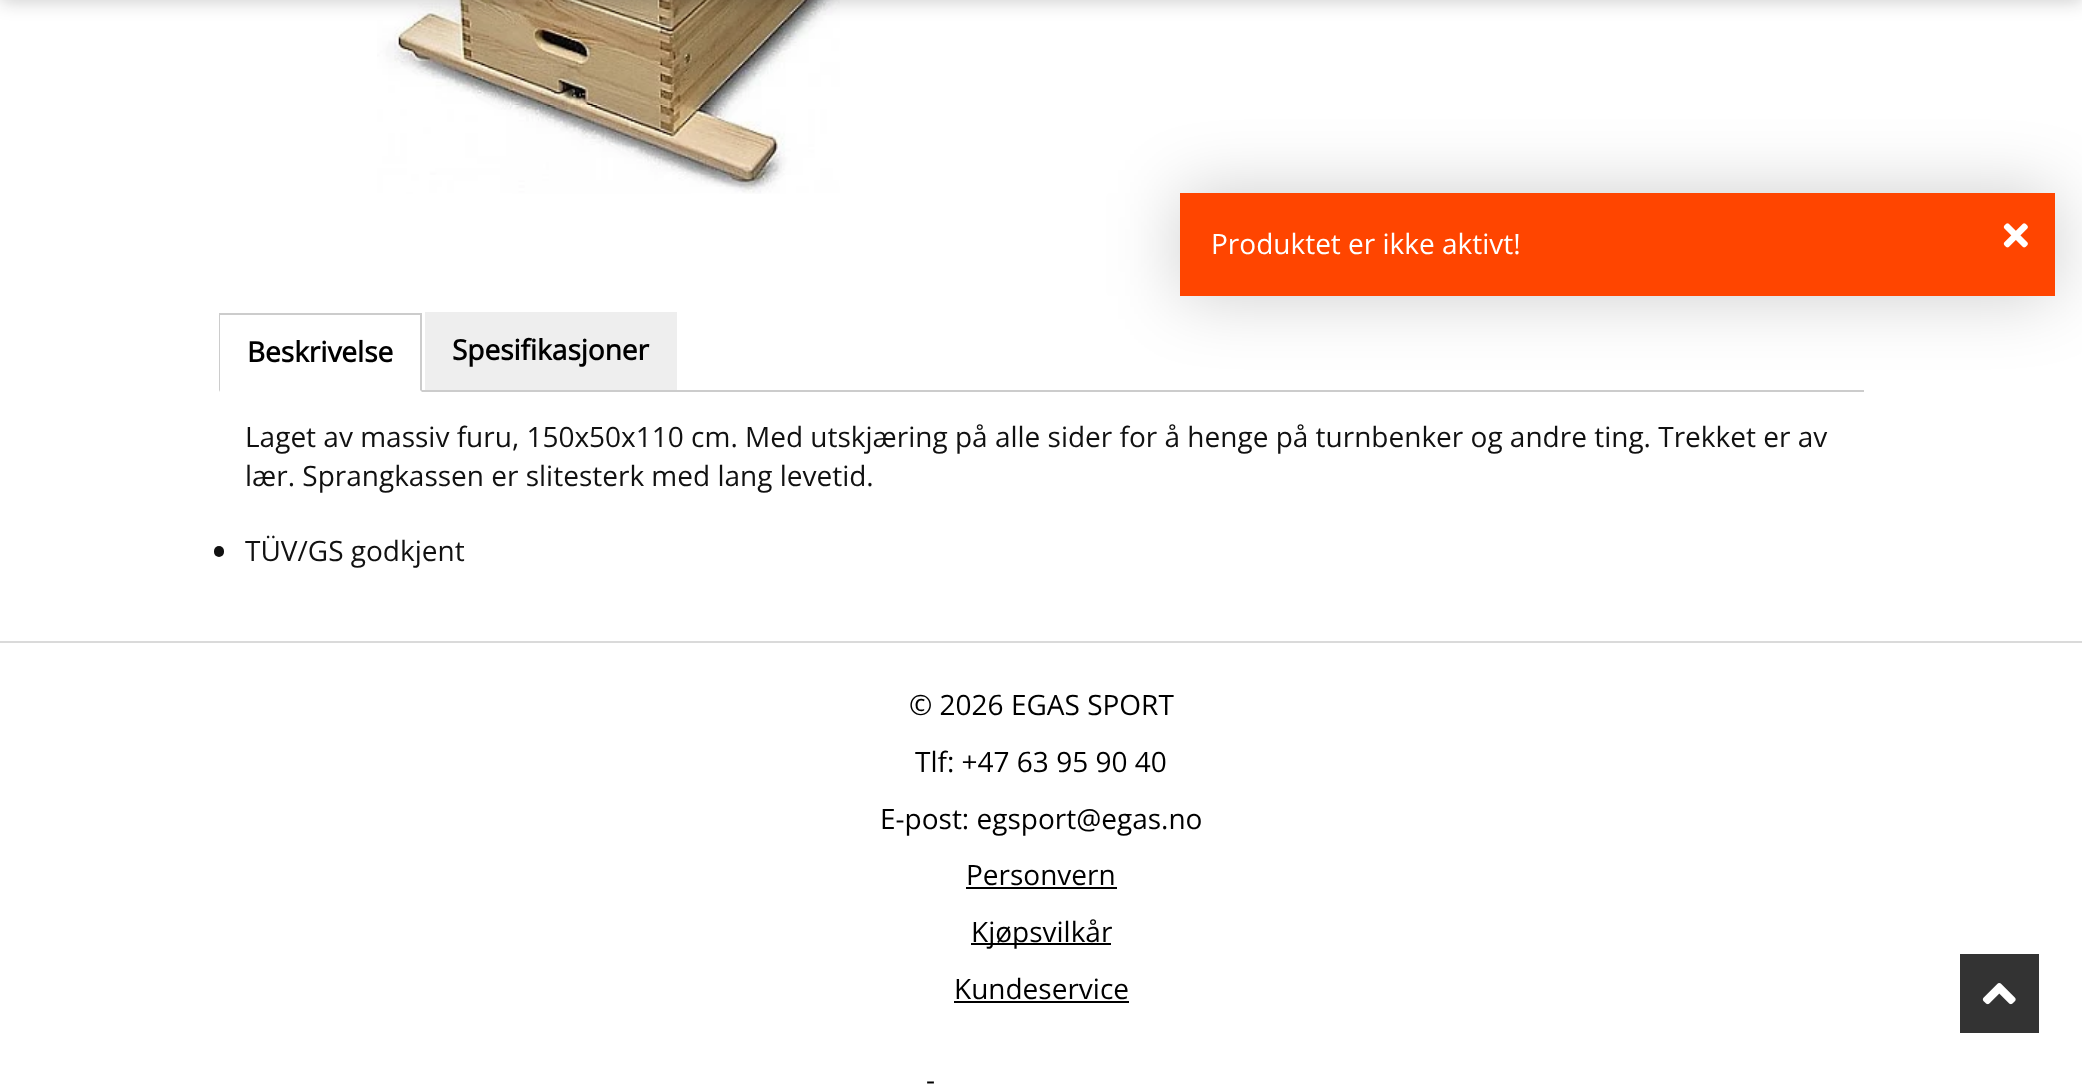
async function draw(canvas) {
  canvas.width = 2082;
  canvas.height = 1084;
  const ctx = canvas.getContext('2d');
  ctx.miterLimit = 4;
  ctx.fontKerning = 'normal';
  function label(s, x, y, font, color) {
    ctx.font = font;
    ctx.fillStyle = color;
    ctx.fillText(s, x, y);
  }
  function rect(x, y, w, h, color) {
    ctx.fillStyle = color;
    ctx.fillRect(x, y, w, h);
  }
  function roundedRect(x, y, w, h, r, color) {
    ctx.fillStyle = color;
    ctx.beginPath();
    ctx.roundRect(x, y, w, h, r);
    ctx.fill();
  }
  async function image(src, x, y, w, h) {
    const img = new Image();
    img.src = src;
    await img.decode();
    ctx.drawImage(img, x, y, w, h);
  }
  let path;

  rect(0, 0, 2082, 1084, '#fff');
  await image('assets/img2.png', 377, 0, 463, 194);
  ctx.fillStyle = '#11111133';
  ctx.filter = 'blur(9px)';
  ctx.beginPath();
  ctx.rect(0, -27, 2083, 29);
  ctx.fill();
  ctx.filter = 'none';
  rect(422, 390, 1442, 2, '#ccc');
  ctx.fillStyle = '#00000033';
  ctx.filter = 'blur(35px)';
  ctx.beginPath();
  ctx.roundRect(1180, 193, 875, 103, 4);
  ctx.fill();
  ctx.filter = 'none';
  rect(1180, 193, 875, 103, '#ff4500');
  label('Produktet er ikke aktivt!', 1211, 254, '28px Open Sans', '#fff');
  await image('assets/img1.png', 2003, 223, 25, 25);
  rect(219, 313, 203, 2, '#ccc');
  path = new Path2D('M422 313V392L420 390V315Z');
  ctx.fill(path);
  path = new Path2D('M219 392V313L220 315V390Z');
  ctx.fill(path);
  label('Beskrivelse', 247, 362, 'bold 28px Open Sans', '#000');
  rect(425, 312, 252, 78, '#eee');
  label('Spesifikasjoner', 452, 360, 'bold 28px Open Sans', '#000');
  label('Laget av massiv furu, 150x50x110 cm. Med utskjæring på alle sider for å henge på turnbenker og andre ting. Trekket er av', 245, 447, '28px Open Sans', '#111');
  label('lær. Sprangkassen er slitesterk med lang levetid.', 245, 486, '28px Open Sans', '#111');
  roundedRect(214, 546, 10, 11, 5, '#111');
  label('TÜV/GS godkjent', 245, 561, '28px Open Sans', '#111');
  rect(1960, 954, 79, 79, '#333');
  await image('assets/img3.png', 1982, 983, 34, 22);
  rect(0, 641, 2082, 2, '#dadada');
  label('© 2026 EGAS SPORT', 909, 715, '28px Open Sans', '#000');
  label('Tlf: +47 63 95 90 40', 915, 772, '28px Open Sans', '#000');
  label('E-post: egsport@egas.no', 880, 829, '28px Open Sans', '#000');
  label('Personvern', 966, 885, '28px Open Sans', '#000');
  rect(966, 887, 151, 2, '#000');
  rect(971, 943, 140, 2, '#000');
  label('Kjøpsvilkår', 971, 942, '28px Open Sans', '#000');
  label('Kundeservice', 954, 999, '28px Open Sans', '#000');
  rect(954, 1001, 175, 2, '#000');
  label('-', 926, 1090, '28px Open Sans', '#000');
}

draw(document.querySelector('canvas'));
